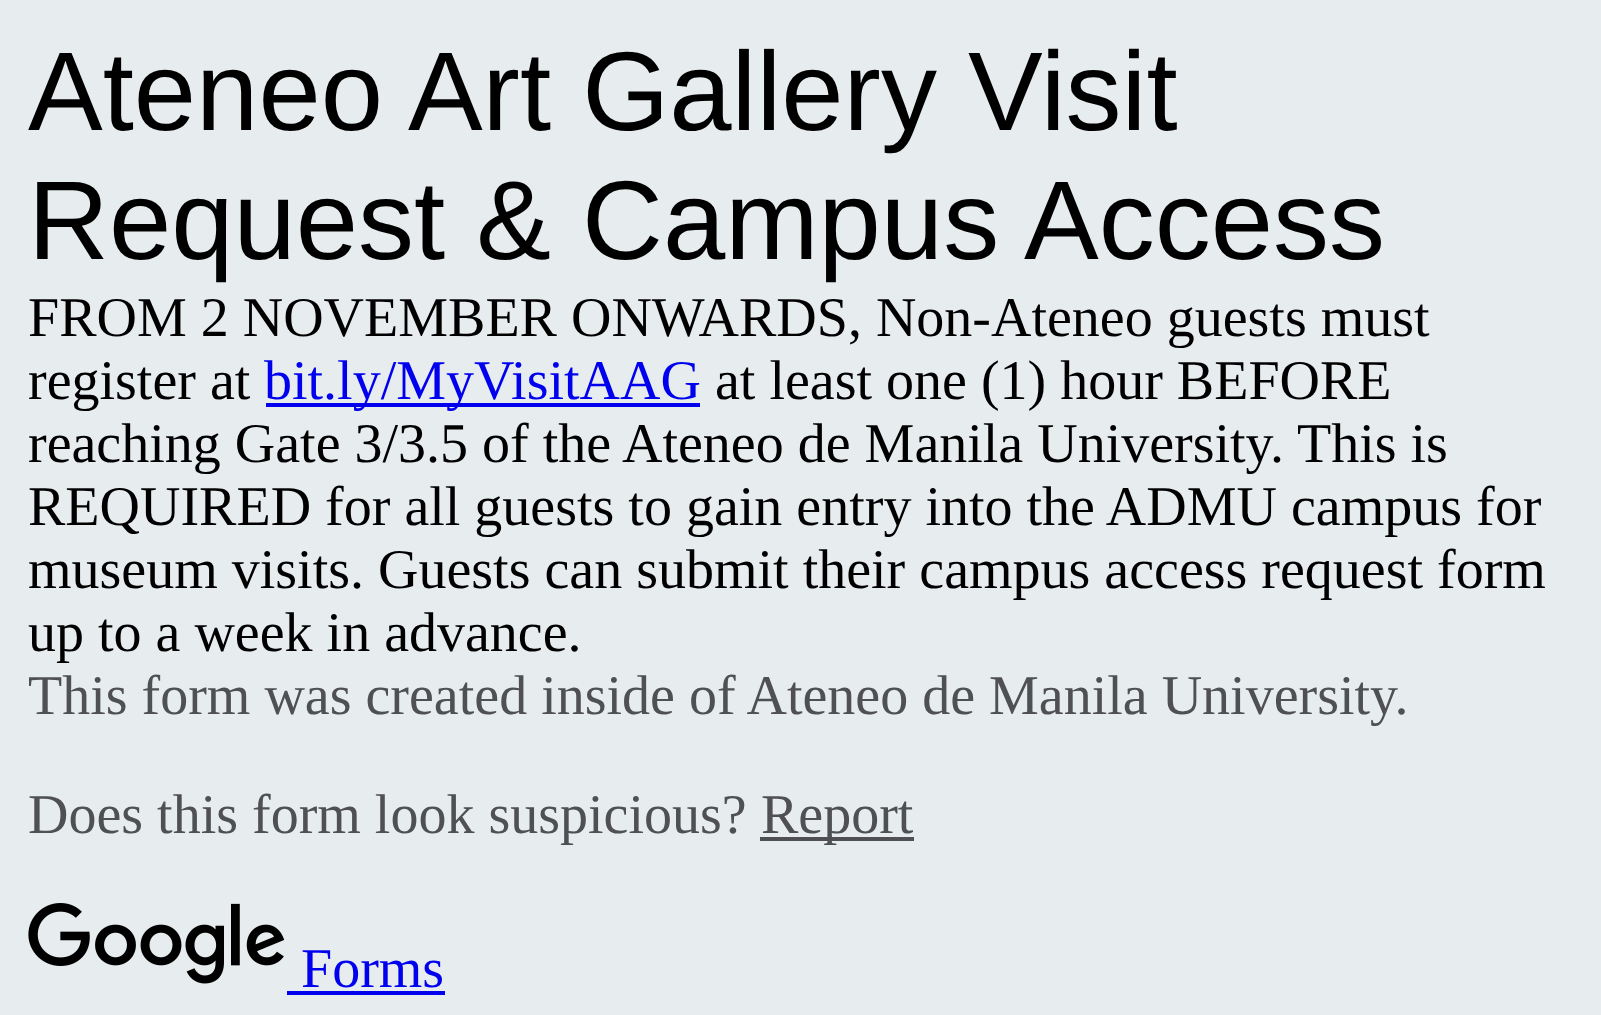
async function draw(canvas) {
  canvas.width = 1601;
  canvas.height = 1015;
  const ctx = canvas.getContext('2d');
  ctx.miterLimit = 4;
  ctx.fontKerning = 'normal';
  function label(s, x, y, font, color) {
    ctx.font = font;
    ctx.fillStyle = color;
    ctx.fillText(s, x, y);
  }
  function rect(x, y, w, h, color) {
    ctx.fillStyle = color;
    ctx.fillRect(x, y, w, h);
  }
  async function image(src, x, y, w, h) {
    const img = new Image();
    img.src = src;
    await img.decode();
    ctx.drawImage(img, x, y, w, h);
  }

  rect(0, 0, 1601, 1015, '#e7ecee');
  label('Ateneo Art Gallery Visit', 28, 130, '112px Liberation Sans', '#000');
  label('Request & Campus Access', 28, 259, '112px Liberation Sans', '#000');
  label('FROM 2 NOVEMBER ONWARDS, Non-Ateneo guests must', 28, 336, '56px Liberation Serif', '#000');
  label('register at', 28, 399, '56px Liberation Serif', '#000');
  rect(266, 403, 434, 4, '#00e');
  label('bit.ly/MyVisitAAG', 264, 399, '56px Liberation Serif', '#00e');
  label('at least one (1) hour BEFORE', 715, 399, '56px Liberation Serif', '#000');
  label('reaching Gate 3/3.5 of the Ateneo de Manila University. This is', 28, 462, '56px Liberation Serif', '#000');
  label('REQUIRED for all guests to gain entry into the ADMU campus for', 28, 525, '56px Liberation Serif', '#000');
  label('museum visits. Guests can submit their campus access request form', 28, 588, '56px Liberation Serif', '#000');
  label('up to a week in advance.', 28, 651, '56px Liberation Serif', '#000');
  label('This form was created inside of Ateneo de Manila University.', 28, 714, '56px Liberation Serif', '#4f5051');
  label('Does this form look suspicious?', 28, 833, '56px Liberation Serif', '#4f5051');
  rect(760, 837, 154, 4, '#4f5051');
  label('Report', 761, 833, '56px Liberation Serif', '#4f5051');
  await image('assets/img1.png', 28, 903, 257, 81);
  label('Forms', 301, 987, '56px Liberation Serif', '#00e');
  rect(287, 991, 158, 4, '#00e');
}

draw(document.querySelector('canvas'));
